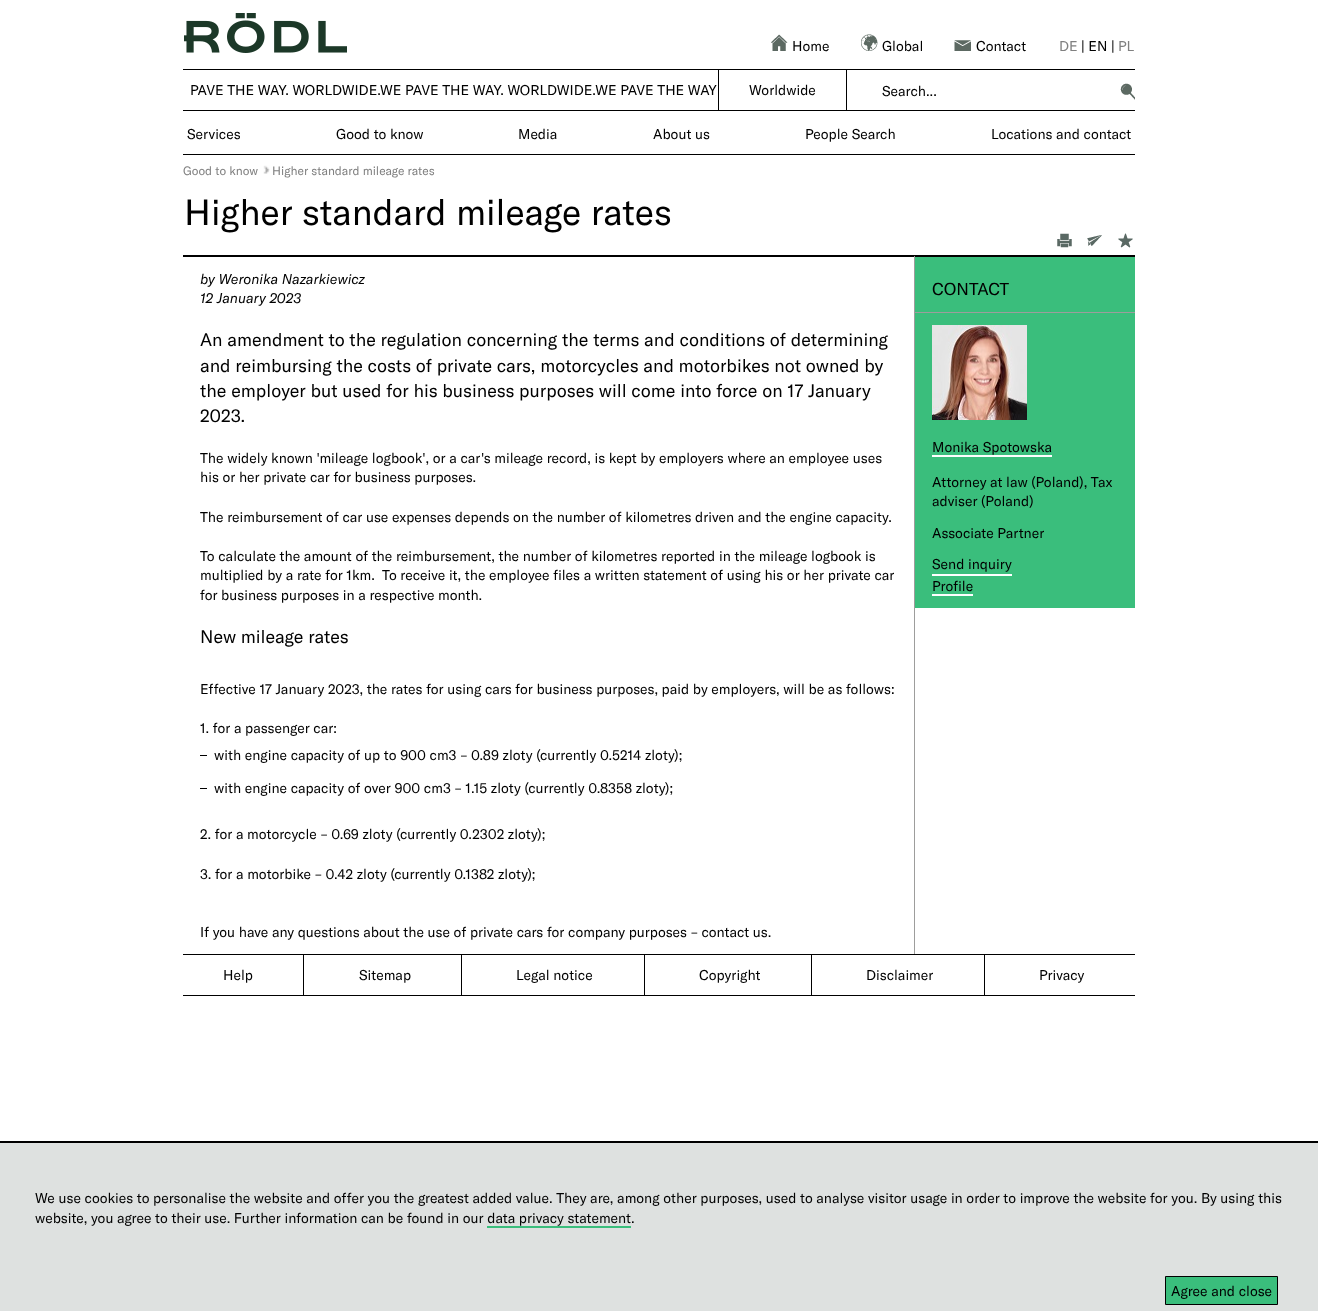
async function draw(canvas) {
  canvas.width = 1318;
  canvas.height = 1311;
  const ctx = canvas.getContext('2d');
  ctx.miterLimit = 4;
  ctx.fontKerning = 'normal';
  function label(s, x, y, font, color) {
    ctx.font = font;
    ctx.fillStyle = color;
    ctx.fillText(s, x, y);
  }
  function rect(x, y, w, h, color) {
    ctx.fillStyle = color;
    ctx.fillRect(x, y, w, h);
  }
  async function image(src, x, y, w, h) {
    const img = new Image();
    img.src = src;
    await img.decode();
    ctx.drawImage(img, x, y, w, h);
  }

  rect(0, 0, 1318, 1311, '#fff');
  await image('assets/img1.png', 184, 13, 163, 40);
  await image('assets/img2.png', 771, 34, 17, 17);
  label('Home', 792, 51, '14px GT America', '#000');
  await image('assets/img3.png', 861, 34, 17, 17);
  label('Global', 882, 51, '14px GT America', '#000');
  await image('assets/img4.png', 954, 40, 17, 11);
  label('Contact', 976, 51, '14px GT America', '#000');
  label('DE', 1059, 51, '14px GT America', '#808080');
  label('| EN |', 1081, 51, '14px GT America', '#000');
  label('PL', 1118, 51, '14px GT America', '#808080');
  rect(183, 69, 952, 1, '#000');
  rect(183, 110, 952, 1, '#000');
  label('PAVE THE WAY. WORLDWIDE.WE PAVE THE WAY. WORLDWIDE.WE PAVE THE WAY', 190, 95, '14px GT America', '#000');
  rect(718, 69, 1, 42, '#000');
  label('Worldwide', 749, 95, '14px GT America', '#000');
  rect(846, 69, 1, 42, '#000');
  label('Search...', 882, 96, '14px GT America', '#000');
  await image('assets/img5.png', 1120, 83, 15, 17);
  rect(183, 154, 952, 1, '#000');
  label('Services', 187, 139, '14px GT America', '#000');
  label('Good to know', 336, 139, '14px GT America', '#000');
  label('Media', 518, 139, '14px GT America', '#000');
  label('About us', 653, 139, '14px GT America', '#000');
  label('People Search', 805, 139, '14px GT America', '#000');
  label('Locations and contact', 991, 139, '14px GT America', '#000');
  label('Good to know', 183, 175, '12px GT America', '#808080');
  await image('assets/img6.png', 263, 165, 7, 9);
  label('Higher standard mileage rates', 272, 175, '12px GT America', '#808080');
  rect(183, 255, 952, 1, '#000');
  label('Higher standard mileage rates', 184, 225, '36px GT America', '#000');
  await image('assets/img7.png', 1057, 233, 15, 15);
  await image('assets/img8.png', 1087, 235, 15, 11);
  await image('assets/img9.png', 1118, 233, 15, 15);
  rect(183, 256, 952, 1, '#000');
  label('by Weronika Nazarkiewicz', 200, 284, 'italic 14px GT America', '#000');
  label('12 January 2023', 200, 303, 'italic 14px GT America', '#000');
  label('An amendment to the regulation concerning the terms and conditions of determining', 200, 346, '18px GT America', '#000');
  label('and reimbursing the costs of private cars, motorcycles and motorbikes not owned by', 200, 372, '18px GT America', '#000');
  label('the employer but used for his business purposes will come into force on 17 January', 200, 397, '18px GT America', '#000');
  label('2023.', 200, 422, '18px GT America', '#000');
  label('The widely known \'mileage logbook\', or a car\'s mileage record, is kept by employers where an employee uses', 200, 463, '14px GT America', '#000');
  label('his or her private car for business purposes.', 200, 482, '14px GT America', '#000');
  label('The reimbursement of car use expenses depends on the number of kilometres driven and the engine capacity.', 200, 522, '14px GT America', '#000');
  label('To calculate the amount of the reimbursement, the number of kilometres reported in the mileage logbook is', 200, 561, '14px GT America', '#000');
  label('multiplied by a rate for 1km.  To receive it, the employee files a written statement of using his or her private car', 200, 580, '14px GT America', '#000');
  label('for business purposes in a respective month.', 200, 600, '14px GT America', '#000');
  label('New mileage rates', 200, 643, '18px GT America', '#000');
  label('Effective 17 January 2023, the rates for using cars for business purposes, paid by employers, will be as follows:', 200, 694, '14px GT America', '#000');
  label('1. for a passenger car:', 200, 733, '14px GT America', '#000');
  rect(200, 755, 7, 1, '#000');
  label('with engine capacity of up to 900 cm3 – 0.89 zloty (currently 0.5214 zloty);', 214, 760, '14px GT America', '#000');
  rect(200, 788, 7, 1, '#000');
  label('with engine capacity of over 900 cm3 – 1.15 zloty (currently 0.8358 zloty);', 214, 793, '14px GT America', '#000');
  label('2. for a motorcycle – 0.69 zloty (currently 0.2302 zloty);', 200, 839, '14px GT America', '#000');
  label('3. for a motorbike – 0.42 zloty (currently 0.1382 zloty);', 200, 879, '14px GT America', '#000');
  label('If you have any questions about the use of private cars for company purposes – contact us.', 200, 937, '14px GT America', '#000');
  rect(914, 256, 1, 698, '#9d9d9c');
  rect(915, 257, 220, 351, '#3abe7c');
  rect(915, 312, 220, 1, '#9d9d9c');
  label('CONTACT', 932, 295, '17px GT America', '#000');
  await image('assets/img10.png', 932, 325, 95, 95);
  label('Monika Spotowska', 932, 452, '14px GT America', '#000');
  rect(932, 455, 120, 2, '#fff');
  label('Attorney at law (Poland), Tax', 932, 487, '14px GT America', '#000');
  label('adviser (Poland)', 932, 506, '14px GT America', '#000');
  label('Associate Partner', 932, 538, '14px GT America', '#000');
  rect(932, 574, 80, 2, '#fff');
  label('Send inquiry', 932, 569, '14px GT America', '#000');
  label('Profile', 932, 591, '14px GT America', '#000');
  rect(932, 594, 41, 2, '#fff');
  rect(183, 954, 952, 1, '#000');
  rect(183, 995, 952, 1, '#000');
  label('Help', 223, 980, '14px GT America', '#000');
  rect(303, 955, 1, 40, '#000');
  label('Sitemap', 359, 980, '14px GT America', '#000');
  rect(461, 955, 1, 40, '#000');
  label('Legal notice', 516, 980, '14px GT America', '#000');
  rect(644, 955, 1, 40, '#000');
  label('Copyright', 699, 980, '14px GT America', '#000');
  rect(811, 955, 1, 40, '#000');
  label('Disclaimer', 866, 980, '14px GT America', '#000');
  rect(984, 955, 1, 40, '#000');
  label('Privacy', 1039, 980, '14px GT America', '#000');
  rect(0, 1143, 1318, 168, '#dee1e0');
  rect(0, 1141, 1318, 2, '#000');
  label('We use cookies to personalise the website and offer you the greatest added value. They are, among other purposes, used to analyse visitor usage in order to improve the website for you. By using this', 35, 1203, '14px GT America', '#000');
  label('website, you agree to their use. Further information can be found in our data privacy statement.', 35, 1223, '14px GT America', '#000');
  rect(487, 1226, 144, 2, '#3abe7c');
  ctx.beginPath();
  ctx.rect(1165.5, 1276.5, 112, 28);
  ctx.fill();
  ctx.strokeStyle = '#000';
  ctx.stroke();
  label('Agree and close', 1171, 1296, '14px GT America', '#000');
}

draw(document.querySelector('canvas'));
